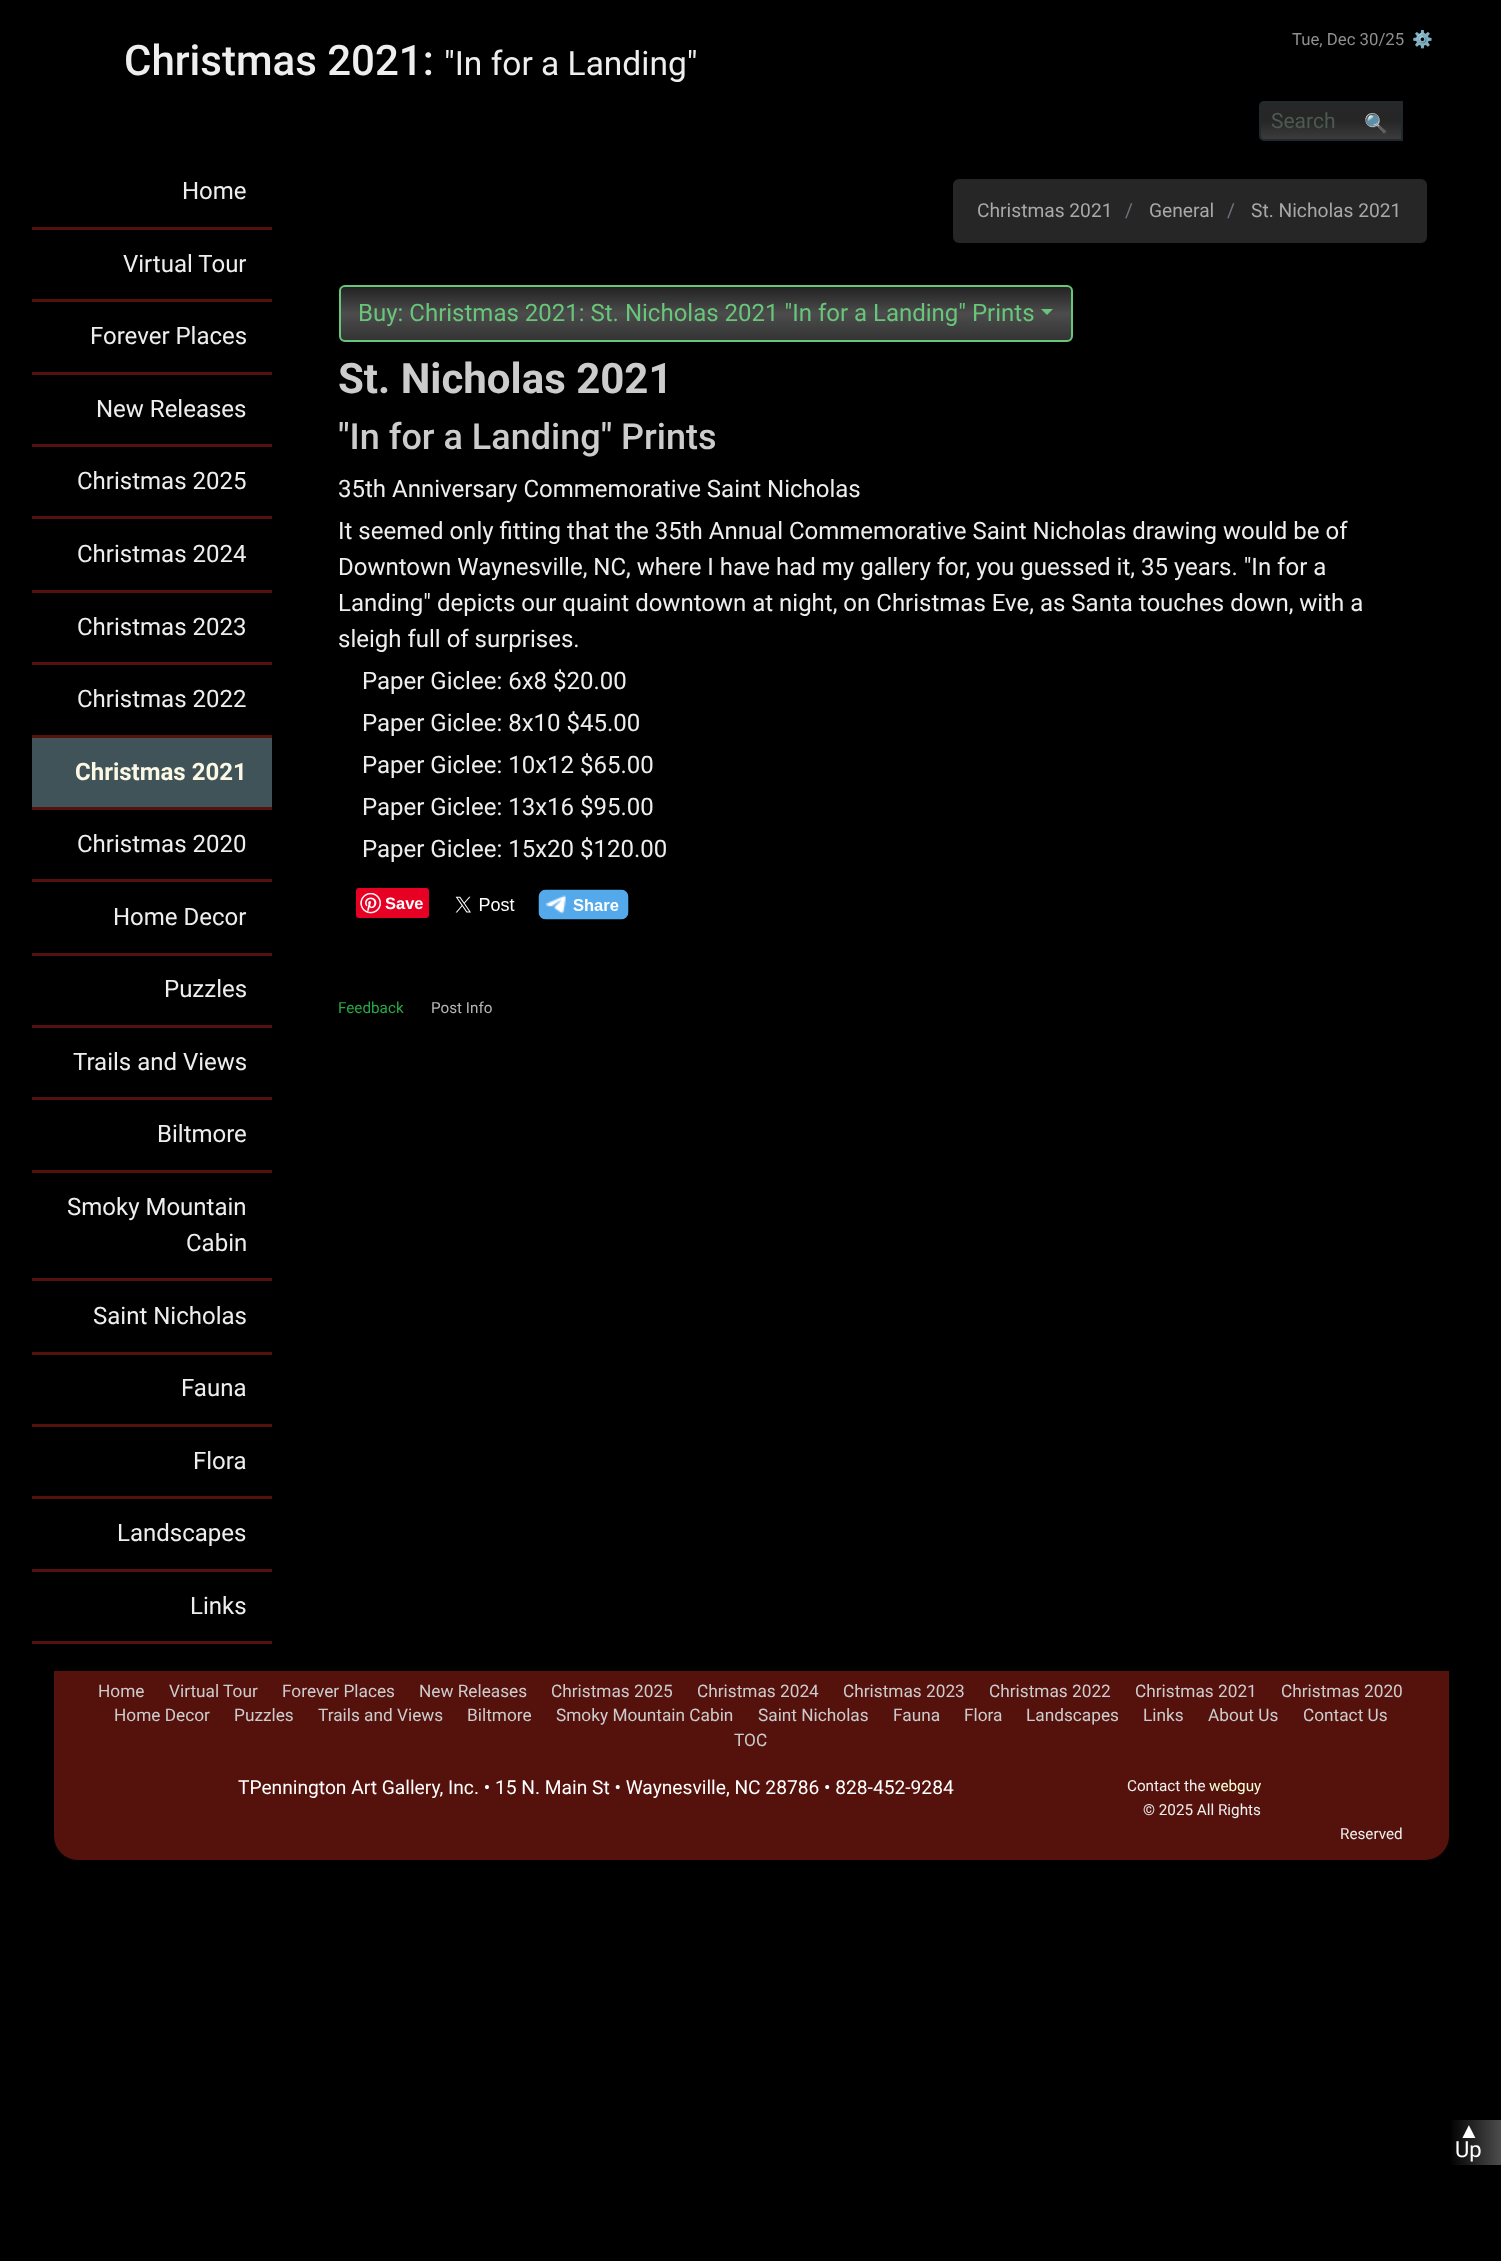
async function draw(canvas) {
  canvas.width = 1501;
  canvas.height = 2261;
  const ctx = canvas.getContext('2d');
  ctx.miterLimit = 4;
  ctx.fontKerning = 'normal';
  function label(s, x, y, font, color) {
    ctx.font = font;
    ctx.fillStyle = color;
    ctx.fillText(s, x, y);
  }
  function rect(x, y, w, h, color) {
    ctx.fillStyle = color;
    ctx.fillRect(x, y, w, h);
  }
  function roundedRect(x, y, w, h, r, color) {
    ctx.fillStyle = color;
    ctx.beginPath();
    ctx.roundRect(x, y, w, h, r);
    ctx.fill();
  }
  async function image(src, x, y, w, h) {
    const img = new Image();
    img.src = src;
    await img.decode();
    ctx.drawImage(img, x, y, w, h);
  }
  let gradient, path;

  rect(0, 0, 1501, 2261, '#000');
  label('Tue, Dec 30/25', 1292, 45, '16.75px Roboto', '#8f8f8f');
  label('⚙', 1412, 45, '16.75px Noto Color Emoji', '#8f8f8f');
  label('Christmas 2021:', 124, 75, '500 42px Roboto', '#eee');
  label('"In for a Landing"', 444, 75, '33.5px Roboto', '#eee');
  gradient = ctx.createLinearGradient(1331, 102, 1331, 140);
  gradient.addColorStop(0, '#272727');
  gradient.addColorStop(0.5, '#262626');
  gradient.addColorStop(1, '#3d3d3d');
  ctx.fillStyle = gradient;
  ctx.beginPath();
  ctx.roundRect(1260, 102, 141, 38, [3, 0, 0, 3]);
  ctx.fill();
  ctx.beginPath();
  ctx.roundRect(1260, 102, 142, 38, [4, 0, 0, 4]);
  ctx.strokeStyle = '#202a2d';
  ctx.lineWidth = 2;
  ctx.stroke();
  label('Search', 1271, 128, '21px Roboto', '#4c5a53');
  label('🔍', 1364, 130, '19.2px Noto Color Emoji', '#eee');
  rect(32, 227, 240, 3, '#55120d');
  label('Home', 182, 199, '24px Roboto', '#eee');
  rect(32, 299, 240, 3, '#55120d');
  label('Virtual Tour', 123, 272, '24px Roboto', '#eee');
  rect(32, 372, 240, 3, '#55120d');
  label('Forever Places', 90, 344, '24px Roboto', '#eee');
  rect(32, 444, 240, 3, '#55120d');
  label('New Releases', 96, 417, '24px Roboto', '#eee');
  rect(32, 516, 240, 3, '#55120d');
  label('Christmas 2025', 77, 489, '24px Roboto', '#eee');
  rect(32, 590, 240, 3, '#55120d');
  label('Christmas 2024', 77, 562, '24px Roboto', '#eee');
  rect(32, 662, 240, 3, '#55120d');
  label('Christmas 2023', 77, 635, '24px Roboto', '#eee');
  rect(32, 735, 240, 3, '#55120d');
  label('Christmas 2022', 77, 707, '24px Roboto', '#eee');
  rect(32, 738, 240, 69, '#405359');
  rect(32, 807, 240, 3, '#55120d');
  label('Christmas 2021', 75, 780, 'bold 24px Roboto', '#fbf8e4');
  rect(32, 879, 240, 3, '#55120d');
  label('Christmas 2020', 77, 852, '24px Roboto', '#eee');
  rect(32, 953, 240, 3, '#55120d');
  label('Home Decor', 113, 925, '24px Roboto', '#eee');
  rect(32, 1025, 240, 3, '#55120d');
  label('Puzzles', 164, 997, '24px Roboto', '#eee');
  rect(32, 1097, 240, 3, '#55120d');
  label('Trails and Views', 73, 1070, '24px Roboto', '#eee');
  rect(32, 1170, 240, 3, '#55120d');
  label('Biltmore', 157, 1142, '24px Roboto', '#eee');
  rect(32, 1278, 240, 3, '#55120d');
  label('Smoky Mountain', 67, 1215, '24px Roboto', '#eee');
  label('Cabin', 186, 1251, '24px Roboto', '#eee');
  rect(32, 1352, 240, 3, '#55120d');
  label('Saint Nicholas', 93, 1324, '24px Roboto', '#eee');
  rect(32, 1424, 240, 3, '#55120d');
  label('Fauna', 181, 1396, '24px Roboto', '#eee');
  rect(32, 1496, 240, 3, '#55120d');
  label('Flora', 193, 1469, '24px Roboto', '#eee');
  rect(32, 1569, 240, 3, '#55120d');
  label('Landscapes', 117, 1541, '24px Roboto', '#eee');
  rect(32, 1641, 240, 3, '#55120d');
  label('Links', 190, 1614, '24px Roboto', '#eee');
  roundedRect(953, 179, 474, 64, 6, '#262626');
  label('Christmas 2021', 977, 217, '19.2px Roboto', '#a8a8a8');
  label('/', 1125, 217, '19.2px Roboto', '#6c757d');
  label('General', 1149, 217, '19.2px Roboto', '#a8a8a8');
  label('/', 1227, 217, '19.2px Roboto', '#6c757d');
  label('St. Nicholas 2021', 1251, 217, '19.2px Roboto', '#a8a8a8');
  ctx.save();
  ctx.beginPath();
  ctx.roundRect(339, 285, 734, 57, 6);
  ctx.clip();
  gradient = ctx.createLinearGradient(706, 286, 706, 341);
  gradient.addColorStop(0, '#212121');
  gradient.addColorStop(0.5, '#4c4c4c');
  gradient.addColorStop(1, '#333');
  ctx.fillStyle = gradient;
  ctx.fillRect(339, 287, 734, 54);
  ctx.restore();
  ctx.beginPath();
  ctx.roundRect(340, 286, 732, 55, 5);
  ctx.strokeStyle = '#67c679';
  ctx.stroke();
  label('Buy: Christmas 2021: St. Nicholas 2021 "In for a Landing" Prints', 358, 321, '24px Roboto', '#67c679');
  path = new Path2D('M1041 309H1053L1047 315Z');
  ctx.fill(path);
  label('St. Nicholas 2021', 338, 393, 'bold 42px Roboto', '#ccc');
  label('"In for a Landing" Prints', 338, 449, '500 36px Roboto', '#ccc');
  label('35th Anniversary Commemorative Saint Nicholas', 338, 497, '24px Roboto', '#eee');
  label('It seemed only fitting that the 35th Annual Commemorative Saint Nicholas drawing would be of', 338, 539, '24px Roboto', '#eee');
  label('Downtown Waynesville, NC, where I have had my gallery for, you guessed it, 35 years. "In for a', 338, 575, '24px Roboto', '#eee');
  label('Landing" depicts our quaint downtown at night, on Christmas Eve, as Santa touches down, with a', 338, 611, '24px Roboto', '#eee');
  label('sleigh full of surprises.', 338, 647, '24px Roboto', '#eee');
  label('Paper Giclee: 6x8 $20.00', 362, 689, '24px Roboto', '#eee');
  label('Paper Giclee: 8x10 $45.00', 362, 731, '24px Roboto', '#eee');
  label('Paper Giclee: 10x12 $65.00', 362, 773, '24px Roboto', '#eee');
  label('Paper Giclee: 13x16 $95.00', 362, 815, '24px Roboto', '#eee');
  label('Paper Giclee: 15x20 $120.00', 362, 857, '24px Roboto', '#eee');
  roundedRect(356, 888, 73, 30, 3, '#e60023');
  await image('assets/img1.png', 360, 893, 21, 21);
  label('Save', 385, 909, 'bold 16.5px Liberation Sans', '#fff');
  await image('assets/img2.png', 455, 896, 60, 17);
  await image('assets/img3.png', 538, 889, 91, 31);
  label('Feedback', 338, 1013, '15.25px Roboto', '#28a745');
  label('Post Info', 431, 1013, '15.25px Roboto', '#b7b7b7');
  ctx.fillStyle = '#55120d';
  ctx.beginPath();
  ctx.roundRect(54, 1671, 1395, 189, [0, 0, 24, 24]);
  ctx.fill();
  label('Home', 98, 1697, '17.25px Roboto', '#ccc');
  label('Virtual Tour', 169, 1697, '17.25px Roboto', '#ccc');
  label('Forever Places', 282, 1697, '17.25px Roboto', '#ccc');
  label('New Releases', 419, 1697, '17.25px Roboto', '#ccc');
  label('Christmas 2025', 551, 1697, '17.25px Roboto', '#ccc');
  label('Christmas 2024', 697, 1697, '17.25px Roboto', '#ccc');
  label('Christmas 2023', 843, 1697, '17.25px Roboto', '#ccc');
  label('Christmas 2022', 989, 1697, '17.25px Roboto', '#ccc');
  label('Christmas 2021', 1135, 1697, '17.25px Roboto', '#ccc');
  label('Christmas 2020', 1281, 1697, '17.25px Roboto', '#ccc');
  label('Home Decor', 114, 1721, '17.25px Roboto', '#ccc');
  label('Puzzles', 234, 1721, '17.25px Roboto', '#ccc');
  label('Trails and Views', 318, 1721, '17.25px Roboto', '#ccc');
  label('Biltmore', 467, 1721, '17.25px Roboto', '#ccc');
  label('Smoky Mountain Cabin', 556, 1721, '17.25px Roboto', '#ccc');
  label('Saint Nicholas', 758, 1721, '17.25px Roboto', '#ccc');
  label('Fauna', 893, 1721, '17.25px Roboto', '#ccc');
  label('Flora', 964, 1721, '17.25px Roboto', '#ccc');
  label('Landscapes', 1026, 1721, '17.25px Roboto', '#ccc');
  label('Links', 1143, 1721, '17.25px Roboto', '#ccc');
  label('About Us', 1208, 1721, '17.25px Roboto', '#ccc');
  label('Contact Us', 1303, 1721, '17.25px Roboto', '#ccc');
  label('TOC', 734, 1746, '17.25px Roboto', '#ccc');
  label('TPennington Art Gallery, Inc. • 15 N. Main St • Waynesville, NC 28786 • 828-452-9284', 238, 1794, '19.2px Roboto', '#fff');
  label('Contact the', 1127, 1791, '15.25px Roboto', '#eee');
  label('webguy', 1209, 1791, '15.25px Roboto', '#f7ffda');
  label('© 2025 All Rights', 1143, 1815, '15.25px Roboto', '#eee');
  label('Reserved', 1340, 1839, '15.25px Roboto', '#eee');
  gradient = ctx.createLinearGradient(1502, 2142, 1449, 2142);
  gradient.addColorStop(0, '#4e4e4e');
  gradient.addColorStop(1, '#000');
  ctx.fillStyle = gradient;
  ctx.fillRect(1451, 2120, 50, 45);
  label('▲', 1458, 2138, '22px Liberation Sans', '#fff');
  label('Up', 1455, 2157, '22px Roboto', '#fff');
}

draw(document.querySelector('canvas'));
